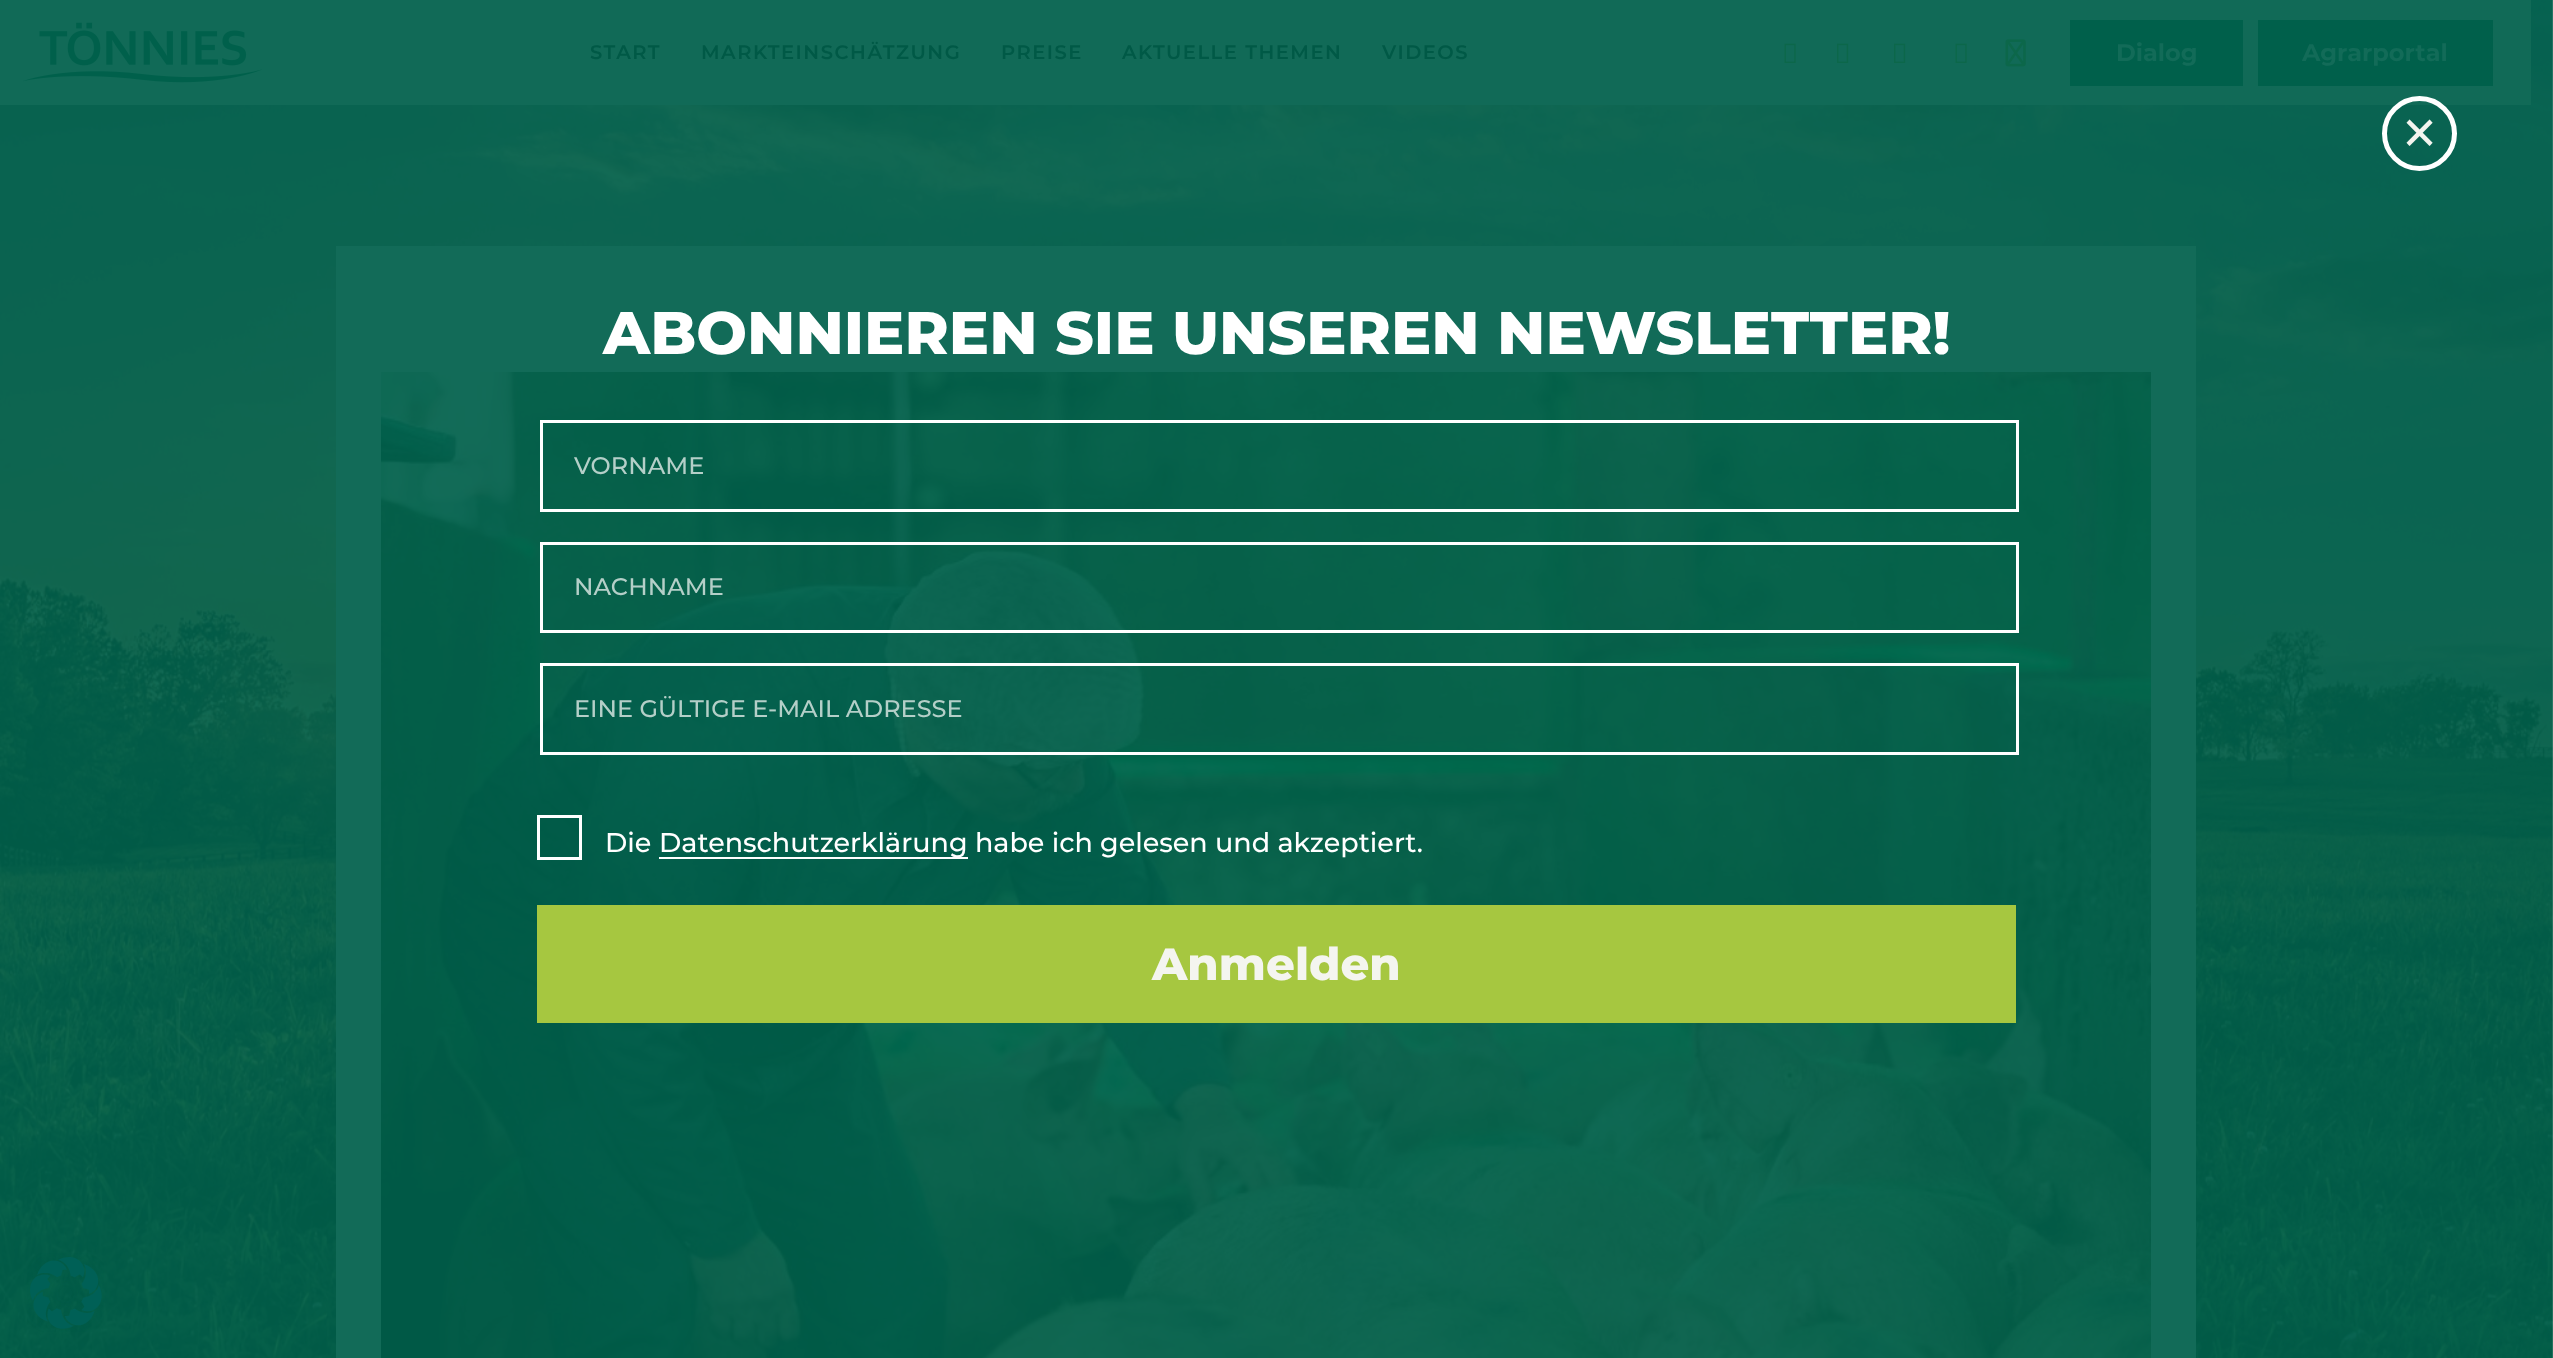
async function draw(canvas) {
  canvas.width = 2553;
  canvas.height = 1358;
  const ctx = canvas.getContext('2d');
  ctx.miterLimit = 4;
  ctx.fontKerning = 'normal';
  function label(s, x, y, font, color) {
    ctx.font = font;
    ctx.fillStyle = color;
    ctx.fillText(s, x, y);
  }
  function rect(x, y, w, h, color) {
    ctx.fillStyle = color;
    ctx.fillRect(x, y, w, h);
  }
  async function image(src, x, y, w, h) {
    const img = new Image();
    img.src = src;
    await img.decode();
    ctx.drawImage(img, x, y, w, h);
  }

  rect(0, 0, 2553, 1358, '#fff');
  await image('assets/img1.png', 0, 0, 2553, 1358);
  rect(0, 0, 2531, 105, '#116a57');
  await image('assets/img2.png', 23, 22, 239, 61);
  ctx.letterSpacing = '1.5px';
  label('START', 590, 59, '600 19.5px Montserrat', '#005946');
  label('MARKTEINSCHÄTZUNG', 701, 59, '600 19.5px Montserrat', '#005946');
  label('PREISE', 1001, 59, '600 19.5px Montserrat', '#005946');
  label('AKTUELLE THEMEN', 1122, 59, '600 19.5px Montserrat', '#005946');
  label('VIDEOS', 1382, 59, '600 19.5px Montserrat', '#005946');
  await image('assets/img3.png', 1784, 43, 12, 20);
  await image('assets/img4.png', 1837, 43, 12, 20);
  await image('assets/img4.png', 1894, 43, 12, 20);
  await image('assets/img3.png', 1955, 43, 12, 20);
  await image('assets/img5.png', 2005, 39, 21, 28);
  rect(2070, 20, 173, 66, '#00604b');
  ctx.letterSpacing = '0px';
  label('Dialog', 2116, 61, 'bold 24px Montserrat', '#126b58');
  rect(2258, 20, 235, 66, '#00604b');
  label('Agrarportal', 2302, 61, 'bold 24px Montserrat', '#126b58');
  rect(336, 246, 1860, 1112, '#126b58');
  await image('assets/img6.png', 381, 372, 1770, 986);
  ctx.beginPath();
  ctx.arc(2419.5, 133.5, 35, 0, 2 * Math.PI);
  ctx.strokeStyle = '#fff';
  ctx.lineWidth = 5;
  ctx.stroke();
  label('×', 2398, 159, '75px Montserrat', '#f4f5ef');
  label('ABONNIEREN SIE UNSEREN NEWSLETTER!', 603, 354, '800 60px Montserrat', '#fff');
  ctx.lineWidth = 3;
  ctx.strokeRect(541.5, 421.5, 1476, 89);
  label('VORNAME', 574, 474, '500 24px Montserrat', '#b4cfc8');
  ctx.strokeRect(541.5, 543.5, 1476, 88);
  label('NACHNAME', 574, 595, '500 24px Montserrat', '#b4cfc8');
  ctx.strokeRect(541.5, 664.5, 1476, 89);
  label('EINE GÜLTIGE E-MAIL ADRESSE', 574, 717, '500 24px Montserrat', '#b4cfc8');
  ctx.strokeRect(538.5, 816.5, 42, 42);
  label('Die', 605, 852, '500 27px Montserrat', '#fff');
  rect(659, 857, 309, 2, '#fff');
  label('Datenschutzerklärung habe ich gelesen und akzeptiert.', 659, 852, '500 27px Montserrat', '#fff');
  rect(537, 905, 1479, 118, '#a6c740');
  label('Anmelden', 1152, 980, '800 45px Montserrat', '#f4f5ef');
  await image('assets/img7.png', 27, 1253, 77, 79);
}

draw(document.querySelector('canvas'));
